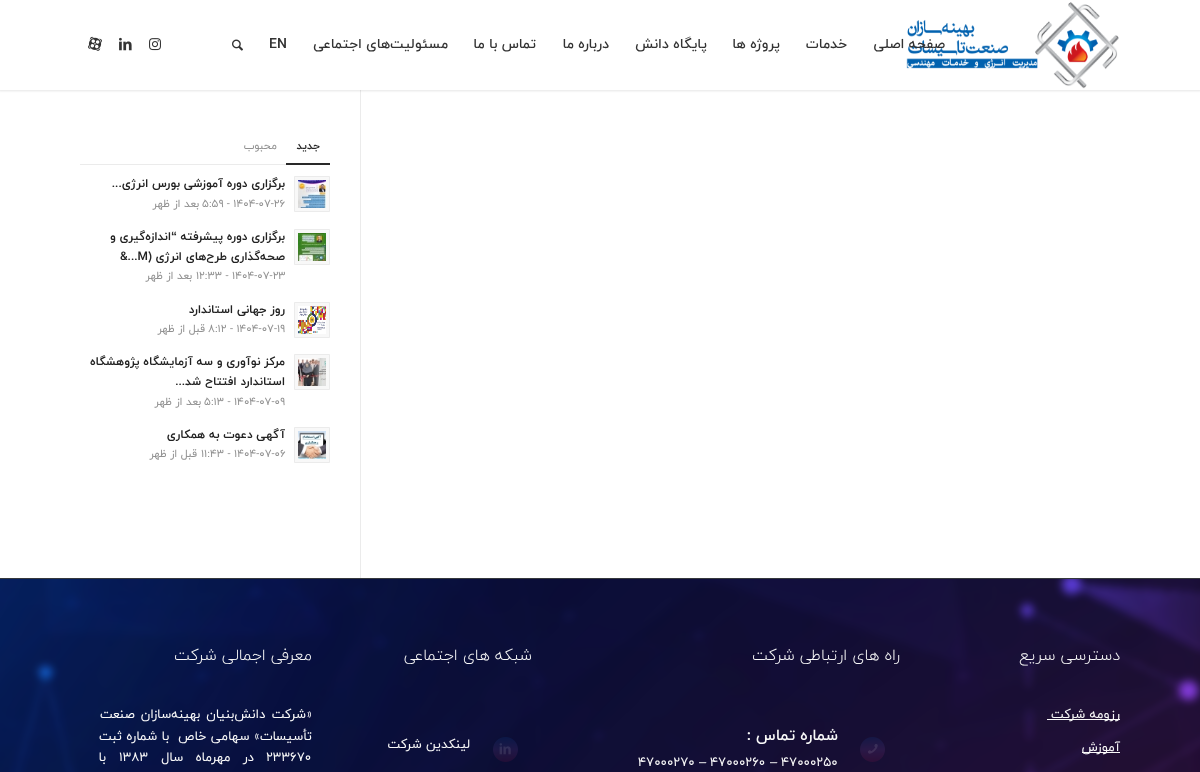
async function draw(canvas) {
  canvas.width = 1200;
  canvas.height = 772;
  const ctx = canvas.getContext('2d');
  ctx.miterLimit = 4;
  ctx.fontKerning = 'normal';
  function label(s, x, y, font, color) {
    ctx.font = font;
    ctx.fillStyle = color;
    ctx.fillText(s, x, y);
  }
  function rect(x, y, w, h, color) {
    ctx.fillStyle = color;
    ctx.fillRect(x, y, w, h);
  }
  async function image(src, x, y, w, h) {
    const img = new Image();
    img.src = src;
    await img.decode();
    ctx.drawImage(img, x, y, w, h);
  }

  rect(0, 0, 1200, 772, '#fff');
  rect(360, 90, 1, 488, '#ebebeb');
  ctx.fillStyle = '#0000001a';
  ctx.filter = 'blur(1px)';
  ctx.beginPath();
  ctx.rect(-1, -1, 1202, 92);
  ctx.fill();
  ctx.filter = 'none';
  rect(0, 0, 1200, 90, '#fff');
  await image('assets/img1.png', 906, 2, 213, 87);
  ctx.direction = 'rtl';
  label('صفحه اصلی', 945, 48, '500 14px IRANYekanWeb', '#333');
  label('خدمات', 847, 48, '500 14px IRANYekanWeb', '#333');
  label('پروژه ها', 780, 48, '500 14px IRANYekanWeb', '#333');
  label('پایگاه دانش', 707, 48, '500 14px IRANYekanWeb', '#333');
  label('درباره ما', 609, 48, '500 14px IRANYekanWeb', '#333');
  label('تماس با ما', 536, 48, '500 14px IRANYekanWeb', '#333');
  label('مسئولیت‌های اجتماعی', 448, 48, '500 14px IRANYekanWeb', '#333');
  ctx.direction = 'ltr';
  label('EN', 269, 48, '500 14px IRANYekanWeb', '#333');
  await image('assets/img2.png', 232, 39, 11, 12);
  await image('assets/img3.png', 149, 38, 12, 13);
  await image('assets/img4.png', 119, 37, 13, 14);
  await image('assets/img5.png', 88, 36, 14, 15);
  rect(80, 164, 206, 1, '#ebebeb');
  rect(286, 163, 44, 2, '#292929');
  ctx.direction = 'rtl';
  label('جدید', 320, 149, 'bold 11px IRANYekanWeb', '#292929');
  label('محبوب', 277, 149, '11px IRANYekanWeb', '#919191');
  ctx.fillStyle = '#f8f8f8';
  ctx.beginPath();
  ctx.rect(294.5, 176.5, 35, 35);
  ctx.fill();
  ctx.strokeStyle = '#ebebeb';
  ctx.stroke();
  await image('assets/img6.png', 298, 180, 28, 28);
  label('برگزاری دوره آموزشی بورس انرژی...', 285, 187, 'bold 11.9px IRANYekanWeb', '#222');
  ctx.direction = 'ltr';
  label('۵:۵۹ - ۱۴۰۴-۰۷-۲۶', 202, 207, '11px IRANYekanWeb', '#919191');
  ctx.direction = 'rtl';
  label('بعد از ظهر', 199, 207, '11px IRANYekanWeb', '#919191');
  ctx.fillStyle = '#f8f8f8';
  ctx.beginPath();
  ctx.rect(294.5, 229.5, 35, 35);
  ctx.fill();
  ctx.stroke();
  await image('assets/img7.png', 298, 233, 28, 28);
  label('برگزاری دوره پیشرفته', 285, 240, 'bold 11.9px IRANYekanWeb', '#222');
  label('“', 177, 240, 'bold 11.9px Liberation Sans', '#222');
  label('اندازه‌گیری و', 171, 240, 'bold 11.9px IRANYekanWeb', '#222');
  label('صحه‌گذاری طرح‌های انرژی (', 285, 260, 'bold 11.9px IRANYekanWeb', '#222');
  ctx.direction = 'ltr';
  label('&...M', 120, 260, 'bold 11.9px IRANYekanWeb', '#222');
  label('۱۲:۳۳ - ۱۴۰۴-۰۷-۲۳', 196, 279, '11px IRANYekanWeb', '#919191');
  ctx.direction = 'rtl';
  label('بعد از ظهر', 192, 279, '11px IRANYekanWeb', '#919191');
  ctx.fillStyle = '#f8f8f8';
  ctx.beginPath();
  ctx.rect(294.5, 302.5, 35, 35);
  ctx.fill();
  ctx.stroke();
  await image('assets/img8.png', 298, 306, 28, 28);
  label('روز جهانی استاندارد', 285, 313, 'bold 11.9px IRANYekanWeb', '#222');
  ctx.direction = 'ltr';
  label('۸:۱۲ - ۱۴۰۴-۰۷-۱۹', 208, 332, '11px IRANYekanWeb', '#919191');
  ctx.direction = 'rtl';
  label('قبل از ظهر', 205, 332, '11px IRANYekanWeb', '#919191');
  ctx.fillStyle = '#f8f8f8';
  ctx.beginPath();
  ctx.rect(294.5, 354.5, 35, 35);
  ctx.fill();
  ctx.stroke();
  await image('assets/img9.png', 298, 358, 28, 28);
  label('مرکز نوآوری و سه آزمایشگاه پژوهشگاه', 285, 365, 'bold 11.9px IRANYekanWeb', '#222');
  label('استاندارد افتتاح شد...', 285, 385, 'bold 11.9px IRANYekanWeb', '#222');
  ctx.direction = 'ltr';
  label('۵:۱۳ - ۱۴۰۴-۰۷-۰۹', 204, 405, '11px IRANYekanWeb', '#919191');
  ctx.direction = 'rtl';
  label('بعد از ظهر', 201, 405, '11px IRANYekanWeb', '#919191');
  ctx.fillStyle = '#f8f8f8';
  ctx.beginPath();
  ctx.rect(294.5, 427.5, 35, 35);
  ctx.fill();
  ctx.stroke();
  await image('assets/img10.png', 298, 431, 28, 28);
  label('آگهی دعوت به همکاری', 285, 438, 'bold 11.9px IRANYekanWeb', '#222');
  ctx.direction = 'ltr';
  label('۱۱:۴۳ - ۱۴۰۴-۰۷-۰۶', 201, 457, '11px IRANYekanWeb', '#919191');
  ctx.direction = 'rtl';
  label('قبل از ظهر', 197, 457, '11px IRANYekanWeb', '#919191');
  rect(0, 578, 1200, 1, '#35383c');
  await image('assets/img11.png', 0, 579, 1200, 193);
  label('دسترسی سریع', 1120, 660, '300 16px IRANYekanWeb', '#f9f9f9');
  rect(1047, 719, 73, 1, '#f9f9f9');
  label('رزومه شرکت', 1120, 718, '13px IRANYekanWeb', '#f9f9f9');
  rect(1082, 752, 38, 1, '#f9f9f9');
  label('آموزش', 1120, 751, '13px IRANYekanWeb', '#f9f9f9');
  label('راه های ارتباطی شرکت', 900, 660, '300 16px IRANYekanWeb', '#f9f9f9');
  await image('assets/img12.png', 868, 744, 10, 10);
  label('شماره تماس :', 838, 740, '500 16px IRANYekanWeb', '#f9f9f9');
  ctx.direction = 'ltr';
  label('۴۷۰۰۰۲۵۰', 781, 766, '13px IRANYekanWeb', '#f9f9f9');
  label('–', 770, 766, '13px Liberation Sans', '#f9f9f9');
  label('۴۷۰۰۰۲۶۰', 710, 766, '13px IRANYekanWeb', '#f9f9f9');
  label('–', 699, 766, '13px Liberation Sans', '#f9f9f9');
  label('۴۷۰۰۰۲۷۰', 638, 766, '13px IRANYekanWeb', '#f9f9f9');
  ctx.direction = 'rtl';
  label('شبکه های اجتماعی', 532, 660, '300 16px IRANYekanWeb', '#f9f9f9');
  await image('assets/img13.png', 499, 743, 12, 12);
  label('لینکدین شرکت', 470, 748, '13px IRANYekanWeb', '#f9f9f9');
  label('معرفی اجمالی شرکت', 312, 660, '300 16px IRANYekanWeb', '#f9f9f9');
  ctx.wordSpacing = '2px';
  label('«شرکت دانش‌بنیان بهینه‌سازان صنعت', 312, 718, '13px IRANYekanWeb', '#f9f9f9');
  ctx.wordSpacing = '0.25px';
  label('تأسیسات» سهامی خاص  با شماره ثبت', 312, 740, '13px IRANYekanWeb', '#f9f9f9');
  ctx.wordSpacing = '0px';
  ctx.direction = 'ltr';
  label('۲۳۳۶۷۰', 266, 761, '13px IRANYekanWeb', '#f9f9f9');
  ctx.wordSpacing = '8px';
  ctx.direction = 'rtl';
  label('در مهرماه سال', 254, 761, '13px IRANYekanWeb', '#f9f9f9');
  ctx.wordSpacing = '0px';
  ctx.direction = 'ltr';
  label('۱۳۸۳', 119, 761, '13px IRANYekanWeb', '#f9f9f9');
  ctx.direction = 'rtl';
  label('با', 106, 761, '13px IRANYekanWeb', '#f9f9f9');
}

draw(document.querySelector('canvas'));
